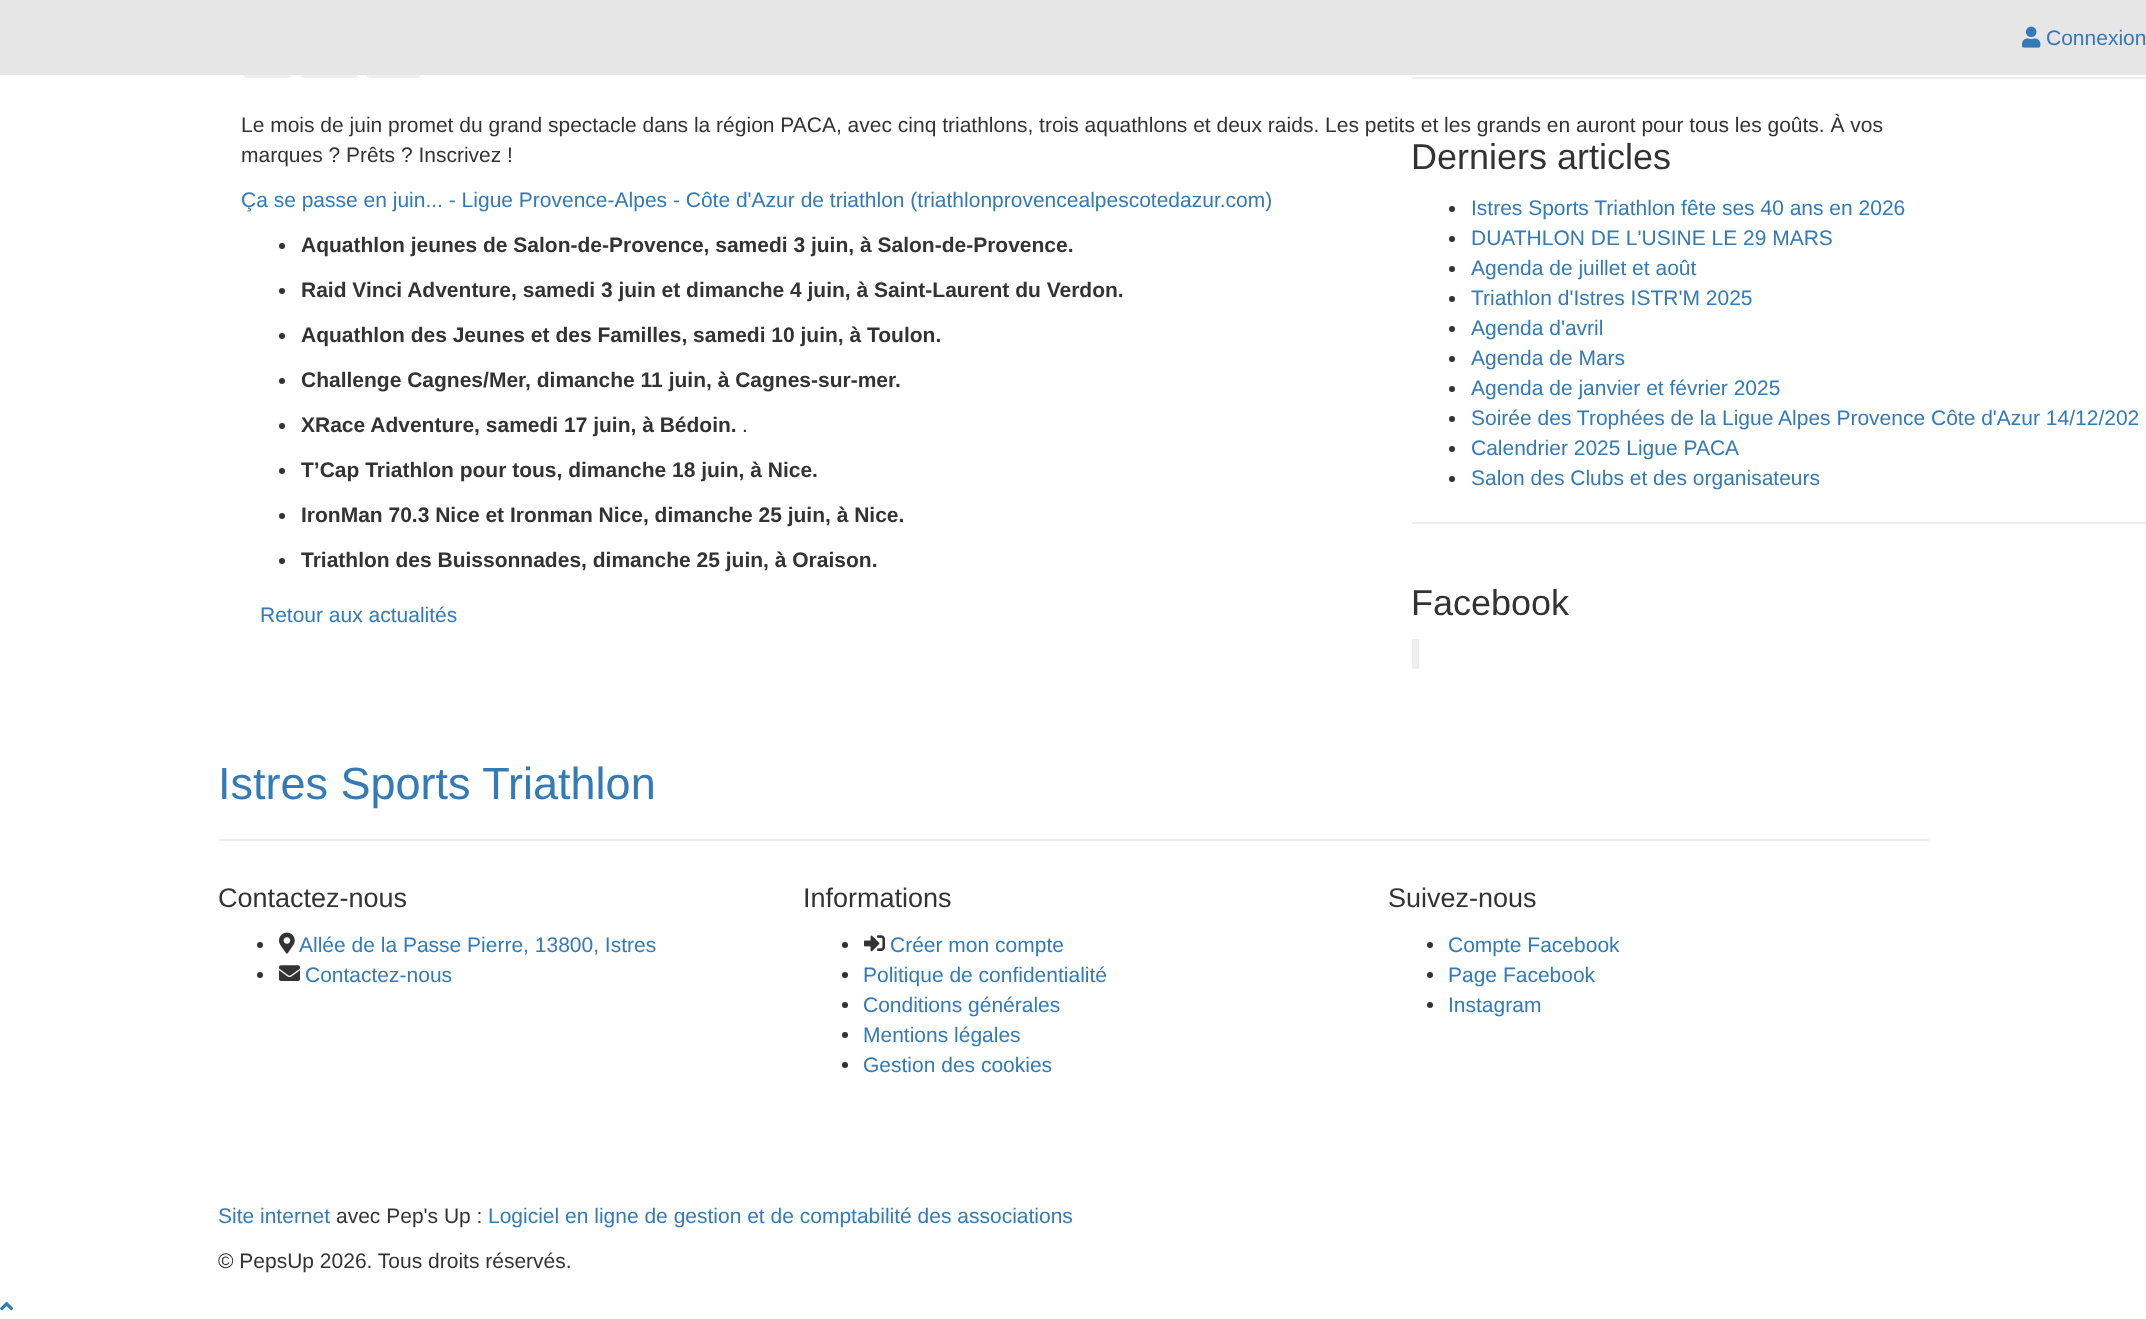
async function draw(canvas) {
  canvas.width = 2146;
  canvas.height = 1319;
  const ctx = canvas.getContext('2d');
  ctx.miterLimit = 4;
  ctx.fontKerning = 'normal';
  function label(s, x, y, font, color) {
    ctx.font = font;
    ctx.fillStyle = color;
    ctx.fillText(s, x, y);
  }
  function rect(x, y, w, h, color) {
    ctx.fillStyle = color;
    ctx.fillRect(x, y, w, h);
  }
  function roundedRect(x, y, w, h, r, color) {
    ctx.fillStyle = color;
    ctx.beginPath();
    ctx.roundRect(x, y, w, h, r);
    ctx.fill();
  }
  async function image(src, x, y, w, h) {
    const img = new Image();
    img.src = src;
    await img.decode();
    ctx.drawImage(img, x, y, w, h);
  }

  rect(0, 0, 2146, 1319, '#fff');
  roundedRect(242, 27, 51, 51, 6, '#efefef');
  roundedRect(299, 27, 60, 51, 6, '#efefef');
  roundedRect(365, 27, 57, 51, 6, '#efefef');
  rect(0, 0, 2146, 75, '#e6e6e6');
  await image('assets/img1.png', 2022, 26, 19, 22);
  label('Connexion', 2046, 45, '21px Liberation Sans', '#337ab7');
  label('Le mois de juin promet du grand spectacle dans la région PACA, avec cinq triathlons, trois aquathlons et deux raids. Les petits et les grands en auront pour tous les goûts. À vos', 241, 132, '21px Liberation Sans', '#333');
  label('marques ? Prêts ? Inscrivez !', 241, 162, '21px Liberation Sans', '#333');
  label('Ça se passe en juin... - Ligue Provence-Alpes - Côte d\'Azur de triathlon (triathlonprovencealpescotedazur.com)', 241, 207, '21px Liberation Sans', '#337ab7');
  ctx.fillStyle = '#333';
  ctx.beginPath();
  ctx.arc(282, 246, 3, 0, 2 * Math.PI);
  ctx.fill();
  label('Aquathlon jeunes de Salon-de-Provence, samedi 3 juin, à Salon-de-Provence.', 301, 252, 'bold 21px Liberation Sans', '#333');
  ctx.beginPath();
  ctx.arc(282, 291, 3, 0, 2 * Math.PI);
  ctx.fill();
  label('Raid Vinci Adventure, samedi 3 juin et dimanche 4 juin, à Saint-Laurent du Verdon.', 301, 297, 'bold 21px Liberation Sans', '#333');
  ctx.beginPath();
  ctx.arc(282, 336, 3, 0, 2 * Math.PI);
  ctx.fill();
  label('Aquathlon des Jeunes et des Familles, samedi 10 juin, à Toulon.', 301, 342, 'bold 21px Liberation Sans', '#333');
  ctx.beginPath();
  ctx.arc(282, 381, 3, 0, 2 * Math.PI);
  ctx.fill();
  label('Challenge Cagnes/Mer, dimanche 11 juin, à Cagnes-sur-mer.', 301, 387, 'bold 21px Liberation Sans', '#333');
  ctx.beginPath();
  ctx.arc(282, 426, 3, 0, 2 * Math.PI);
  ctx.fill();
  label('XRace Adventure, samedi 17 juin, à Bédoin.', 301, 432, 'bold 21px Liberation Sans', '#333');
  label('.', 742, 432, '21px Liberation Sans', '#333');
  ctx.beginPath();
  ctx.arc(282, 471, 3, 0, 2 * Math.PI);
  ctx.fill();
  label('T’Cap Triathlon pour tous, dimanche 18 juin, à Nice.', 301, 477, 'bold 21px Liberation Sans', '#333');
  ctx.beginPath();
  ctx.arc(282, 516, 3, 0, 2 * Math.PI);
  ctx.fill();
  label('IronMan 70.3 Nice et Ironman Nice, dimanche 25 juin, à Nice.', 301, 522, 'bold 21px Liberation Sans', '#333');
  ctx.beginPath();
  ctx.arc(282, 561, 3, 0, 2 * Math.PI);
  ctx.fill();
  label('Triathlon des Buissonnades, dimanche 25 juin, à Oraison.', 301, 567, 'bold 21px Liberation Sans', '#333');
  label('Retour aux actualités', 260, 622, '21px Liberation Sans', '#337ab7');
  rect(1412, 77, 734, 2, '#eee');
  label('Derniers articles', 1411, 169, '36px Liberation Sans', '#333');
  ctx.beginPath();
  ctx.arc(1452, 209, 3, 0, 2 * Math.PI);
  ctx.fill();
  label('Istres Sports Triathlon fête ses 40 ans en 2026', 1471, 215, '21px Liberation Sans', '#337ab7');
  ctx.fillStyle = '#333';
  ctx.beginPath();
  ctx.arc(1452, 239, 3, 0, 2 * Math.PI);
  ctx.fill();
  label('DUATHLON DE L\'USINE LE 29 MARS', 1471, 245, '21px Liberation Sans', '#337ab7');
  ctx.fillStyle = '#333';
  ctx.beginPath();
  ctx.arc(1452, 269, 3, 0, 2 * Math.PI);
  ctx.fill();
  label('Agenda de juillet et août', 1471, 275, '21px Liberation Sans', '#337ab7');
  ctx.fillStyle = '#333';
  ctx.beginPath();
  ctx.arc(1452, 299, 3, 0, 2 * Math.PI);
  ctx.fill();
  label('Triathlon d\'Istres ISTR\'M 2025', 1471, 305, '21px Liberation Sans', '#337ab7');
  ctx.fillStyle = '#333';
  ctx.beginPath();
  ctx.arc(1452, 329, 3, 0, 2 * Math.PI);
  ctx.fill();
  label('Agenda d\'avril', 1471, 335, '21px Liberation Sans', '#337ab7');
  ctx.fillStyle = '#333';
  ctx.beginPath();
  ctx.arc(1452, 359, 3, 0, 2 * Math.PI);
  ctx.fill();
  label('Agenda de Mars', 1471, 365, '21px Liberation Sans', '#337ab7');
  ctx.fillStyle = '#333';
  ctx.beginPath();
  ctx.arc(1452, 389, 3, 0, 2 * Math.PI);
  ctx.fill();
  label('Agenda de janvier et février 2025', 1471, 395, '21px Liberation Sans', '#337ab7');
  ctx.fillStyle = '#333';
  ctx.beginPath();
  ctx.arc(1452, 419, 3, 0, 2 * Math.PI);
  ctx.fill();
  label('Soirée des Trophées de la Ligue Alpes Provence Côte d\'Azur 14/12/202', 1471, 425, '21px Liberation Sans', '#337ab7');
  ctx.fillStyle = '#333';
  ctx.beginPath();
  ctx.arc(1452, 449, 3, 0, 2 * Math.PI);
  ctx.fill();
  label('Calendrier 2025 Ligue PACA', 1471, 455, '21px Liberation Sans', '#337ab7');
  ctx.fillStyle = '#333';
  ctx.beginPath();
  ctx.arc(1452, 479, 3, 0, 2 * Math.PI);
  ctx.fill();
  label('Salon des Clubs et des organisateurs', 1471, 485, '21px Liberation Sans', '#337ab7');
  rect(1412, 522, 734, 2, '#eee');
  label('Facebook', 1411, 615, '36px Liberation Sans', '#333');
  rect(1412, 639, 7, 30, '#eee');
  label('Istres Sports Triathlon', 218, 799, '45px Liberation Sans', '#337ab7');
  rect(219, 839, 1710, 2, '#eee');
  label('Contactez-nous', 218, 907, '27px Liberation Sans', '#333');
  ctx.beginPath();
  ctx.arc(260, 945, 3, 0, 2 * Math.PI);
  ctx.fill();
  await image('assets/img2.png', 279, 932, 16, 22);
  label('Allée de la Passe Pierre, 13800, Istres', 299, 952, '21px Liberation Sans', '#337ab7');
  ctx.fillStyle = '#333';
  ctx.beginPath();
  ctx.arc(260, 975, 3, 0, 2 * Math.PI);
  ctx.fill();
  await image('assets/img3.png', 279, 965, 21, 16);
  label('Contactez-nous', 305, 982, '21px Liberation Sans', '#337ab7');
  label('Informations', 803, 907, '27px Liberation Sans', '#333');
  ctx.beginPath();
  ctx.arc(845, 945, 3, 0, 2 * Math.PI);
  ctx.fill();
  await image('assets/img4.png', 864, 935, 21, 17);
  label('Créer mon compte', 890, 952, '21px Liberation Sans', '#337ab7');
  ctx.fillStyle = '#333';
  ctx.beginPath();
  ctx.arc(845, 975, 3, 0, 2 * Math.PI);
  ctx.fill();
  label('Politique de confidentialité', 863, 982, '21px Liberation Sans', '#337ab7');
  ctx.fillStyle = '#333';
  ctx.beginPath();
  ctx.arc(845, 1005, 3, 0, 2 * Math.PI);
  ctx.fill();
  label('Conditions générales', 863, 1012, '21px Liberation Sans', '#337ab7');
  ctx.fillStyle = '#333';
  ctx.beginPath();
  ctx.arc(845, 1035, 3, 0, 2 * Math.PI);
  ctx.fill();
  label('Mentions légales', 863, 1042, '21px Liberation Sans', '#337ab7');
  ctx.fillStyle = '#333';
  ctx.beginPath();
  ctx.arc(845, 1065, 3, 0, 2 * Math.PI);
  ctx.fill();
  label('Gestion des cookies', 863, 1072, '21px Liberation Sans', '#337ab7');
  label('Suivez-nous', 1388, 907, '27px Liberation Sans', '#333');
  ctx.beginPath();
  ctx.arc(1430, 945, 3, 0, 2 * Math.PI);
  ctx.fill();
  label('Compte Facebook', 1448, 952, '21px Liberation Sans', '#337ab7');
  ctx.fillStyle = '#333';
  ctx.beginPath();
  ctx.arc(1430, 975, 3, 0, 2 * Math.PI);
  ctx.fill();
  label('Page Facebook', 1448, 982, '21px Liberation Sans', '#337ab7');
  ctx.fillStyle = '#333';
  ctx.beginPath();
  ctx.arc(1430, 1005, 3, 0, 2 * Math.PI);
  ctx.fill();
  label('Instagram', 1448, 1012, '21px Liberation Sans', '#337ab7');
  label('Site internet', 218, 1223, '21px Liberation Sans', '#337ab7');
  label('avec Pep\'s Up :', 336, 1223, '21px Liberation Sans', '#333');
  label('Logiciel en ligne de gestion et de comptabilité des associations', 488, 1223, '21px Liberation Sans', '#337ab7');
  label('© PepsUp 2026. Tous droits réservés.', 218, 1268, '21px Liberation Sans', '#333');
  await image('assets/img5.png', 0, 1301, 14, 10);
}

draw(document.querySelector('canvas'));
